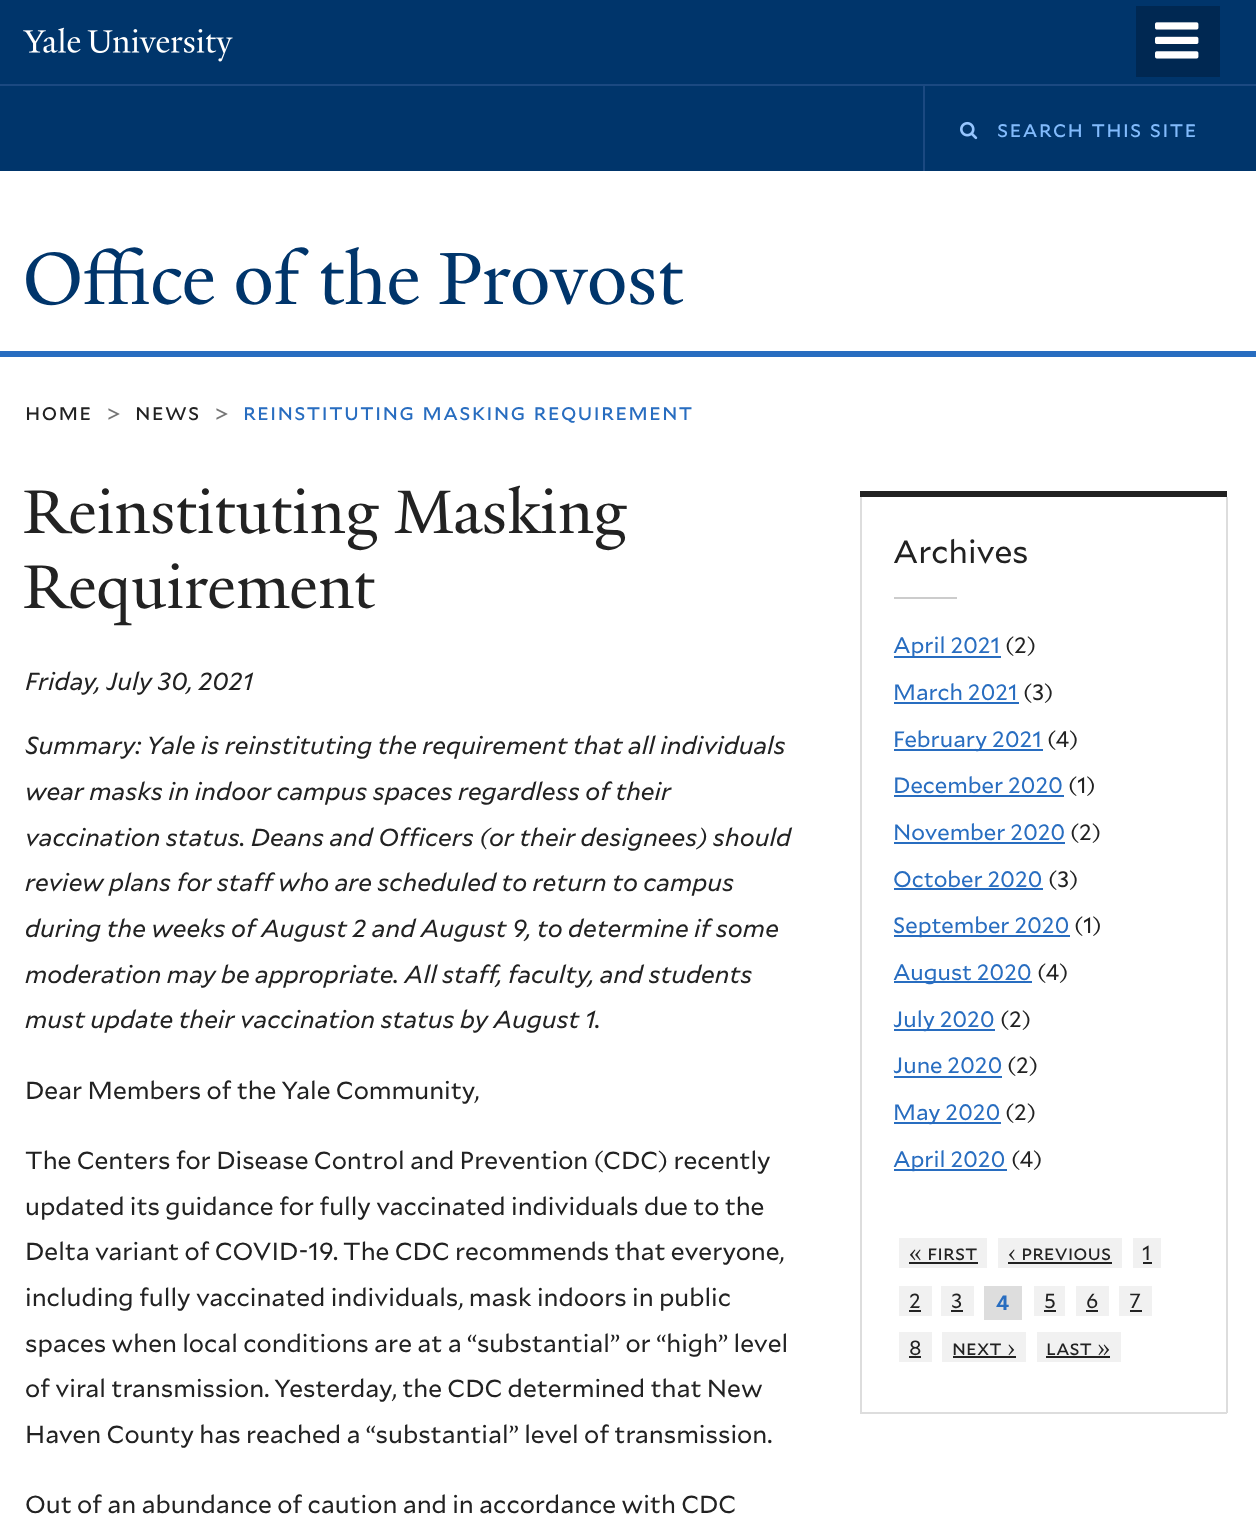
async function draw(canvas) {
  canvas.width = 1256;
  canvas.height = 1529;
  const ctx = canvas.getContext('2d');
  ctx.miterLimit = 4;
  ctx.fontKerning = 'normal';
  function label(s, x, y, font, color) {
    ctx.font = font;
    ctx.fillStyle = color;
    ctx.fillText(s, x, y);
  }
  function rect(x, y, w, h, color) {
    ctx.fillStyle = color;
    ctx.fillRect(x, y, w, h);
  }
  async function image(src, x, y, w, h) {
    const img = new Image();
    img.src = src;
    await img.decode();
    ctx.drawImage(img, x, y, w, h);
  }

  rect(0, 0, 1256, 1529, '#fff');
  rect(0, 0, 1256, 171, '#00356b');
  rect(0, 84, 1256, 2, '#1b4981');
  await image('assets/img1.png', 23, 27, 58, 26);
  await image('assets/img2.png', 87, 29, 146, 33);
  rect(1136, 6, 84, 71, '#002852');
  await image('assets/img3.png', 1155, 22, 44, 37);
  rect(923, 86, 2, 85, '#1b4981');
  await image('assets/img4.png', 960, 121, 18, 19);
  ctx.letterSpacing = '1.15px';
  ctx.wordSpacing = '1px';
  label('search this site', 997, 137, '22.8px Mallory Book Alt', '#82bbfc');
  ctx.letterSpacing = '0px';
  ctx.wordSpacing = '0px';
  label('Office of the Provost', 23, 304, '80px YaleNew', '#00356b');
  rect(0, 351, 1256, 6, '#286dc0');
  ctx.letterSpacing = '1.15px';
  label('home', 25, 420, '22.8px Mallory Book Alt', '#222');
  label('>', 107, 422, '22.8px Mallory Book', '#767676');
  label('news', 135, 420, '22.8px Mallory Book Alt', '#222');
  label('>', 215, 422, '22.8px Mallory Book', '#767676');
  ctx.wordSpacing = '1px';
  label('reinstituting masking requirement', 243, 420, '22.8px Mallory Book Alt', '#286dc0');
  ctx.letterSpacing = '0px';
  ctx.wordSpacing = '0px';
  label('Reinstituting Masking', 23, 533, '66.75px YaleNew', '#222');
  label('Requirement', 23, 608, '66.75px YaleNew', '#222');
  label('Friday, July 30, 2021', 25, 690, 'italic 24.7px Mallory Book', '#222');
  label('Summary: Yale is reinstituting the requirement that all individuals', 25, 754, 'italic 24.7px Mallory Book', '#222');
  label('wear masks in indoor campus spaces regardless of their', 25, 800, 'italic 24.7px Mallory Book', '#222');
  label('vaccination status. Deans and Officers (or their designees) should', 25, 846, 'italic 24.7px Mallory Book', '#222');
  label('review plans for staff who are scheduled to return to campus', 25, 891, 'italic 24.7px Mallory Book', '#222');
  label('during the weeks of August 2 and August 9, to determine if some', 25, 937, 'italic 24.7px Mallory Book', '#222');
  label('moderation may be appropriate. All staff, faculty, and students', 25, 983, 'italic 24.7px Mallory Book', '#222');
  label('must update their vaccination status by August 1.', 25, 1028, 'italic 24.7px Mallory Book', '#222');
  label('Dear Members of the Yale Community,', 25, 1099, '24.7px Mallory Book', '#222');
  label('The Centers for Disease Control and Prevention (CDC) recently', 25, 1169, '24.7px Mallory Book', '#222');
  label('updated its guidance for fully vaccinated individuals due to the', 25, 1215, '24.7px Mallory Book', '#222');
  label('Delta variant of COVID-19. The CDC recommends that everyone,', 25, 1260, '24.7px Mallory Book', '#222');
  label('including fully vaccinated individuals, mask indoors in public', 25, 1306, '24.7px Mallory Book', '#222');
  label('spaces when local conditions are at a “substantial” or “high” level', 25, 1352, '24.7px Mallory Book', '#222');
  label('of viral transmission. Yesterday, the CDC determined that New', 25, 1397, '24.7px Mallory Book', '#222');
  label('Haven County has reached a “substantial” level of transmission.', 25, 1443, '24.7px Mallory Book', '#222');
  label('Out of an abundance of caution and in accordance with CDC', 25, 1513, '24.7px Mallory Book', '#222');
  rect(860, 491, 367, 6, '#222');
  rect(1226, 497, 2, 916, '#ddd');
  rect(860, 1412, 367, 2, '#ddd');
  rect(860, 497, 2, 916, '#ddd');
  label('Archives', 893, 563, '32px Mallory Book', '#222');
  rect(894, 597, 63, 2, '#ccc');
  rect(894, 656, 107, 2, '#286dc0');
  label('April 2021', 893, 653, '22.25px Mallory Book', '#286dc0');
  label('(2)', 1005, 653, '22.25px Mallory Book', '#222');
  label('March 2021', 893, 700, '22.25px Mallory Book', '#286dc0');
  rect(894, 702, 125, 2, '#286dc0');
  label('(3)', 1023, 700, '22.25px Mallory Book', '#222');
  rect(894, 749, 149, 2, '#286dc0');
  label('February 2021', 893, 747, '22.25px Mallory Book', '#286dc0');
  label('(4)', 1047, 747, '22.25px Mallory Book', '#222');
  label('December 2020', 893, 793, '22.25px Mallory Book', '#286dc0');
  rect(894, 795, 170, 2, '#286dc0');
  label('(1)', 1068, 793, '22.25px Mallory Book', '#222');
  label('November 2020', 893, 840, '22.25px Mallory Book', '#286dc0');
  rect(894, 842, 171, 2, '#286dc0');
  label('(2)', 1070, 840, '22.25px Mallory Book', '#222');
  label('October 2020', 893, 887, '22.25px Mallory Book', '#286dc0');
  rect(894, 888, 149, 2, '#286dc0');
  label('(3)', 1048, 887, '22.25px Mallory Book', '#222');
  rect(894, 935, 176, 2, '#286dc0');
  label('September 2020', 893, 933, '22.25px Mallory Book', '#286dc0');
  label('(1)', 1074, 933, '22.25px Mallory Book', '#222');
  rect(894, 981, 138, 2, '#286dc0');
  label('August 2020', 893, 980, '22.25px Mallory Book', '#286dc0');
  label('(4)', 1037, 980, '22.25px Mallory Book', '#222');
  rect(894, 1029, 101, 2, '#286dc0');
  label('July 2020', 893, 1027, '22.25px Mallory Book', '#286dc0');
  label('(2)', 1000, 1027, '22.25px Mallory Book', '#222');
  label('June 2020', 893, 1073, '22.25px Mallory Book', '#286dc0');
  rect(894, 1076, 108, 2, '#286dc0');
  label('(2)', 1007, 1073, '22.25px Mallory Book', '#222');
  rect(894, 1122, 107, 2, '#286dc0');
  label('May 2020', 893, 1120, '22.25px Mallory Book', '#286dc0');
  label('(2)', 1005, 1120, '22.25px Mallory Book', '#222');
  rect(894, 1169, 113, 2, '#286dc0');
  label('April 2020', 893, 1167, '22.25px Mallory Book', '#286dc0');
  label('(4)', 1011, 1167, '22.25px Mallory Book', '#222');
  rect(899, 1238, 88, 30, '#f1f1f1');
  ctx.wordSpacing = '1px';
  label('« first', 909, 1260, '20.5px Mallory Book Alt', '#222');
  rect(909, 1262, 69, 2, '#222');
  rect(998, 1238, 124, 30, '#f1f1f1');
  label('‹ previous', 1008, 1260, '20.5px Mallory Book Alt', '#222');
  rect(1008, 1262, 104, 2, '#222');
  rect(1133, 1238, 28, 30, '#f1f1f1');
  ctx.wordSpacing = '0px';
  label('1', 1142, 1260, '20.5px Mallory Book', '#222');
  rect(1143, 1262, 9, 2, '#222');
  rect(899, 1286, 33, 30, '#f1f1f1');
  label('2', 909, 1308, '20.5px Mallory Book', '#222');
  rect(909, 1310, 12, 2, '#222');
  rect(941, 1286, 33, 30, '#f1f1f1');
  label('3', 951, 1308, '20.5px Mallory Book', '#222');
  rect(951, 1310, 12, 2, '#222');
  rect(984, 1286, 38, 34, '#ddd');
  label('4', 996, 1310, 'bold 20.5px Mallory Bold', '#286dc0');
  rect(1034, 1286, 31, 30, '#f1f1f1');
  label('5', 1044, 1308, '20.5px Mallory Book', '#222');
  rect(1044, 1310, 12, 2, '#222');
  rect(1076, 1286, 33, 30, '#f1f1f1');
  label('6', 1086, 1308, '20.5px Mallory Book', '#222');
  rect(1086, 1310, 12, 2, '#222');
  rect(1119, 1286, 33, 30, '#f1f1f1');
  label('7', 1129, 1308, '20.5px Mallory Book', '#222');
  rect(1130, 1310, 12, 2, '#222');
  rect(899, 1332, 33, 30, '#f1f1f1');
  label('8', 909, 1355, '20.5px Mallory Book', '#222');
  rect(909, 1356, 12, 2, '#222');
  rect(942, 1332, 84, 30, '#f1f1f1');
  ctx.wordSpacing = '1px';
  label('next ›', 952, 1355, '20.5px Mallory Book Alt', '#222');
  rect(953, 1356, 63, 2, '#222');
  rect(1037, 1332, 84, 30, '#f1f1f1');
  label('last »', 1046, 1355, '20.5px Mallory Book Alt', '#222');
  rect(1046, 1356, 64, 2, '#222');
}

draw(document.querySelector('canvas'));
